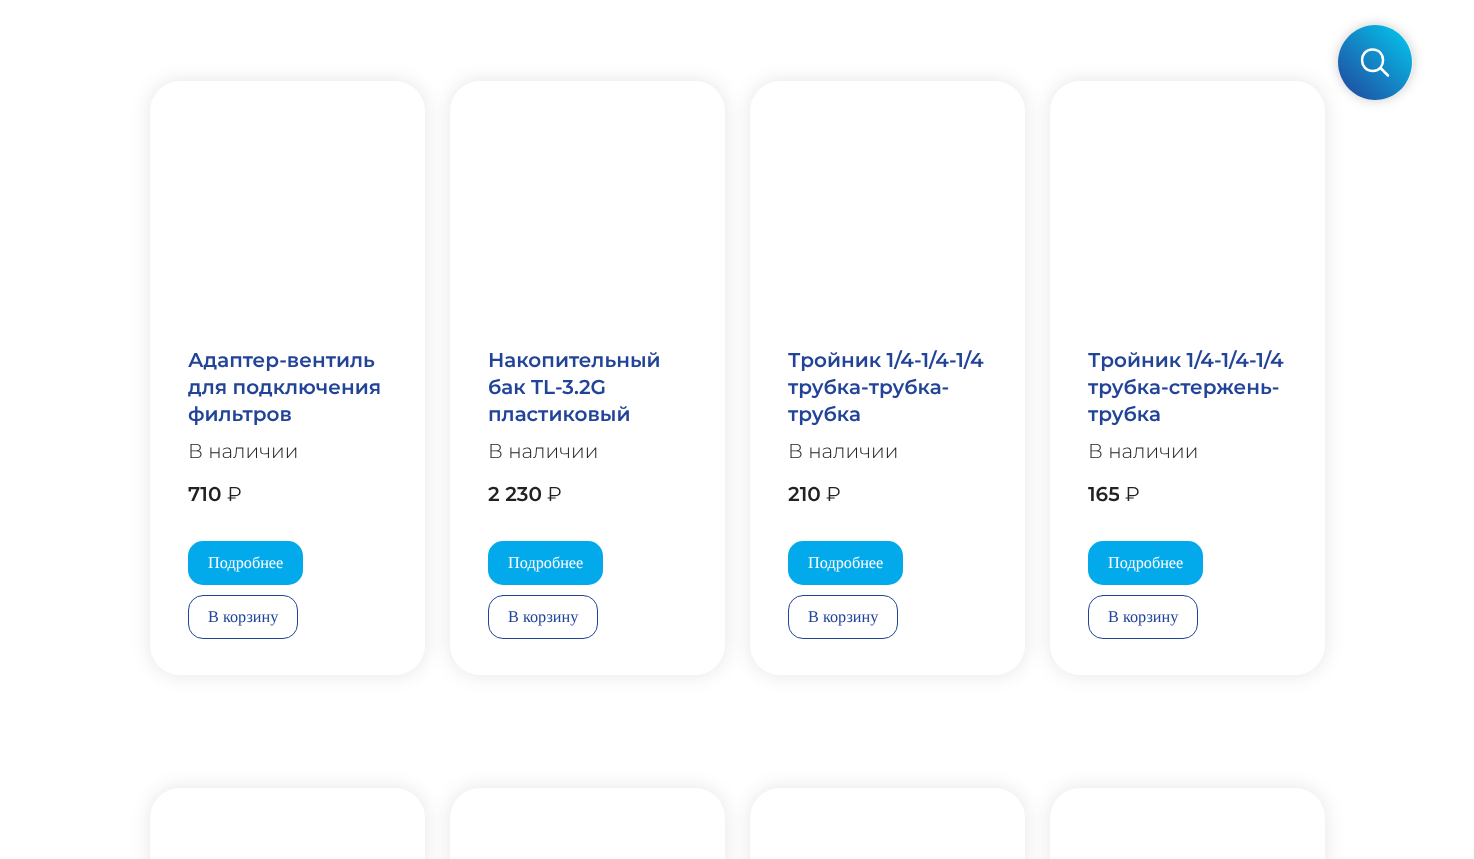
async function draw(canvas) {
  canvas.width = 1474;
  canvas.height = 859;
  const ctx = canvas.getContext('2d');
  ctx.miterLimit = 4;
  ctx.fontKerning = 'normal';
  function label(s, x, y, font, color) {
    ctx.font = font;
    ctx.fillStyle = color;
    ctx.fillText(s, x, y);
  }
  function rect(x, y, w, h, color) {
    ctx.fillStyle = color;
    ctx.fillRect(x, y, w, h);
  }
  function roundedRect(x, y, w, h, r, color) {
    ctx.fillStyle = color;
    ctx.beginPath();
    ctx.roundRect(x, y, w, h, r);
    ctx.fill();
  }
  let gradient, path;

  rect(0, 0, 1474, 859, '#fff');
  ctx.fillStyle = '#0000001a';
  ctx.filter = 'blur(9.5px)';
  ctx.beginPath();
  ctx.roundRect(150, 81, 275, 594, 30);
  ctx.fill();
  ctx.filter = 'none';
  roundedRect(150, 81, 275, 594, 30, '#fff');
  ctx.fillStyle = '#0000001a';
  ctx.filter = 'blur(9.5px)';
  ctx.beginPath();
  ctx.roundRect(450, 81, 275, 594, 30);
  ctx.fill();
  ctx.filter = 'none';
  roundedRect(450, 81, 275, 594, 30, '#fff');
  ctx.fillStyle = '#0000001a';
  ctx.filter = 'blur(9.5px)';
  ctx.beginPath();
  ctx.roundRect(750, 81, 275, 594, 30);
  ctx.fill();
  ctx.filter = 'none';
  roundedRect(750, 81, 275, 594, 30, '#fff');
  ctx.fillStyle = '#0000001a';
  ctx.filter = 'blur(9.5px)';
  ctx.beginPath();
  ctx.roundRect(1050, 81, 275, 594, 30);
  ctx.fill();
  ctx.filter = 'none';
  roundedRect(1050, 81, 275, 594, 30, '#fff');
  ctx.fillStyle = '#00000033';
  ctx.filter = 'blur(6px)';
  ctx.beginPath();
  ctx.roundRect(1338, 25, 75, 75, 37.5);
  ctx.fill();
  ctx.filter = 'none';
  ctx.fillStyle = '#ffffffcc';
  ctx.beginPath();
  ctx.arc(1375.5, 62.5, 37.5, 0, 2 * Math.PI);
  ctx.fill();
  gradient = ctx.createLinearGradient(1413, 25, 1338, 100);
  gradient.addColorStop(0, '#02ccf2');
  gradient.addColorStop(1, '#23439a');
  ctx.fillStyle = gradient;
  path = new Path2D('M1375 25C1396 25 1412 42 1412 62C1412 83 1396 100 1375 100C1355 100 1338 83 1338 62C1338 42 1355 25 1375 25Z');
  ctx.fill(path);
  path = new Path2D('M1372.5 49.5C1358.5 49.5 1358.5 71 1373 71C1386.5 70.5 1386.5 49.5 1372.5 49.5Z');
  ctx.strokeStyle = '#fff';
  ctx.lineWidth = 2.5;
  ctx.stroke(path);
  path = new Path2D('M1380.5 68L1388 75.5');
  ctx.lineCap = 'round';
  ctx.stroke(path);
  label('Адаптер-вентиль', 188, 367, '600 20px Montserrat', '#214498');
  label('для подключения', 188, 394, '600 20px Montserrat', '#214498');
  label('фильтров', 188, 421, '600 20px Montserrat', '#214498');
  label('В наличии', 188, 458, '300 20px Montserrat', '#222');
  label('710', 188, 501, '600 20px Montserrat', '#222');
  label('₽', 227, 501, '20px Montserrat', '#222');
  roundedRect(188, 541, 115, 44, 15, '#02a9eb');
  label('Подробнее', 208, 568, '16.25px Liberation Serif', '#fff');
  ctx.beginPath();
  ctx.roundRect(188.5, 595.5, 109, 43, 14.5);
  ctx.strokeStyle = '#214498';
  ctx.lineWidth = 1;
  ctx.stroke();
  label('В корзину', 208, 622, '16.25px Liberation Serif', '#214498');
  label('Накопительный', 488, 367, '600 20px Montserrat', '#214498');
  label('бак TL-3.2G', 488, 394, '600 20px Montserrat', '#214498');
  label('пластиковый', 488, 421, '600 20px Montserrat', '#214498');
  label('В наличии', 488, 458, '300 20px Montserrat', '#222');
  label('2 230', 488, 501, '600 20px Montserrat', '#222');
  label('₽', 547, 501, '20px Montserrat', '#222');
  roundedRect(488, 541, 115, 44, 15, '#02a9eb');
  label('Подробнее', 508, 568, '16.25px Liberation Serif', '#fff');
  ctx.beginPath();
  ctx.roundRect(488.5, 595.5, 109, 43, 14.5);
  ctx.stroke();
  label('В корзину', 508, 622, '16.25px Liberation Serif', '#214498');
  label('Тройник 1/4-1/4-1/4', 788, 367, '600 20px Montserrat', '#214498');
  label('трубка-трубка-', 788, 394, '600 20px Montserrat', '#214498');
  label('трубка', 788, 421, '600 20px Montserrat', '#214498');
  label('В наличии', 788, 458, '300 20px Montserrat', '#222');
  label('210', 788, 501, '600 20px Montserrat', '#222');
  label('₽', 826, 501, '20px Montserrat', '#222');
  roundedRect(788, 541, 115, 44, 15, '#02a9eb');
  label('Подробнее', 808, 568, '16.25px Liberation Serif', '#fff');
  ctx.beginPath();
  ctx.roundRect(788.5, 595.5, 109, 43, 14.5);
  ctx.stroke();
  label('В корзину', 808, 622, '16.25px Liberation Serif', '#214498');
  label('Тройник 1/4-1/4-1/4', 1088, 367, '600 20px Montserrat', '#214498');
  label('трубка-стержень-', 1088, 394, '600 20px Montserrat', '#214498');
  label('трубка', 1088, 421, '600 20px Montserrat', '#214498');
  label('В наличии', 1088, 458, '300 20px Montserrat', '#222');
  ctx.save();
  ctx.beginPath();
  ctx.rect(1088, 481, 31, 27);
  ctx.clip();
  label('165', 1088, 501, '600 20px Montserrat', '#222');
  ctx.restore();
  label('₽', 1125, 501, '20px Montserrat', '#222');
  roundedRect(1088, 541, 115, 44, 15, '#02a9eb');
  label('Подробнее', 1108, 568, '16.25px Liberation Serif', '#fff');
  ctx.beginPath();
  ctx.roundRect(1088.5, 595.5, 109, 43, 14.5);
  ctx.stroke();
  label('В корзину', 1108, 622, '16.25px Liberation Serif', '#214498');
  ctx.fillStyle = '#0000001a';
  ctx.filter = 'blur(9.5px)';
  ctx.beginPath();
  ctx.roundRect(150, 788, 275, 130, 30);
  ctx.fill();
  ctx.filter = 'none';
  roundedRect(150, 788, 275, 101, 30, '#fff');
  ctx.fillStyle = '#0000001a';
  ctx.filter = 'blur(9.5px)';
  ctx.beginPath();
  ctx.roundRect(450, 788, 275, 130, 30);
  ctx.fill();
  ctx.filter = 'none';
  roundedRect(450, 788, 275, 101, 30, '#fff');
  ctx.fillStyle = '#0000001a';
  ctx.filter = 'blur(9.5px)';
  ctx.beginPath();
  ctx.roundRect(750, 788, 275, 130, 30);
  ctx.fill();
  ctx.filter = 'none';
  roundedRect(750, 788, 275, 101, 30, '#fff');
  ctx.fillStyle = '#0000001a';
  ctx.filter = 'blur(9.5px)';
  ctx.beginPath();
  ctx.roundRect(1050, 788, 275, 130, 30);
  ctx.fill();
  ctx.filter = 'none';
  roundedRect(1050, 788, 275, 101, 30, '#fff');
}

draw(document.querySelector('canvas'));
